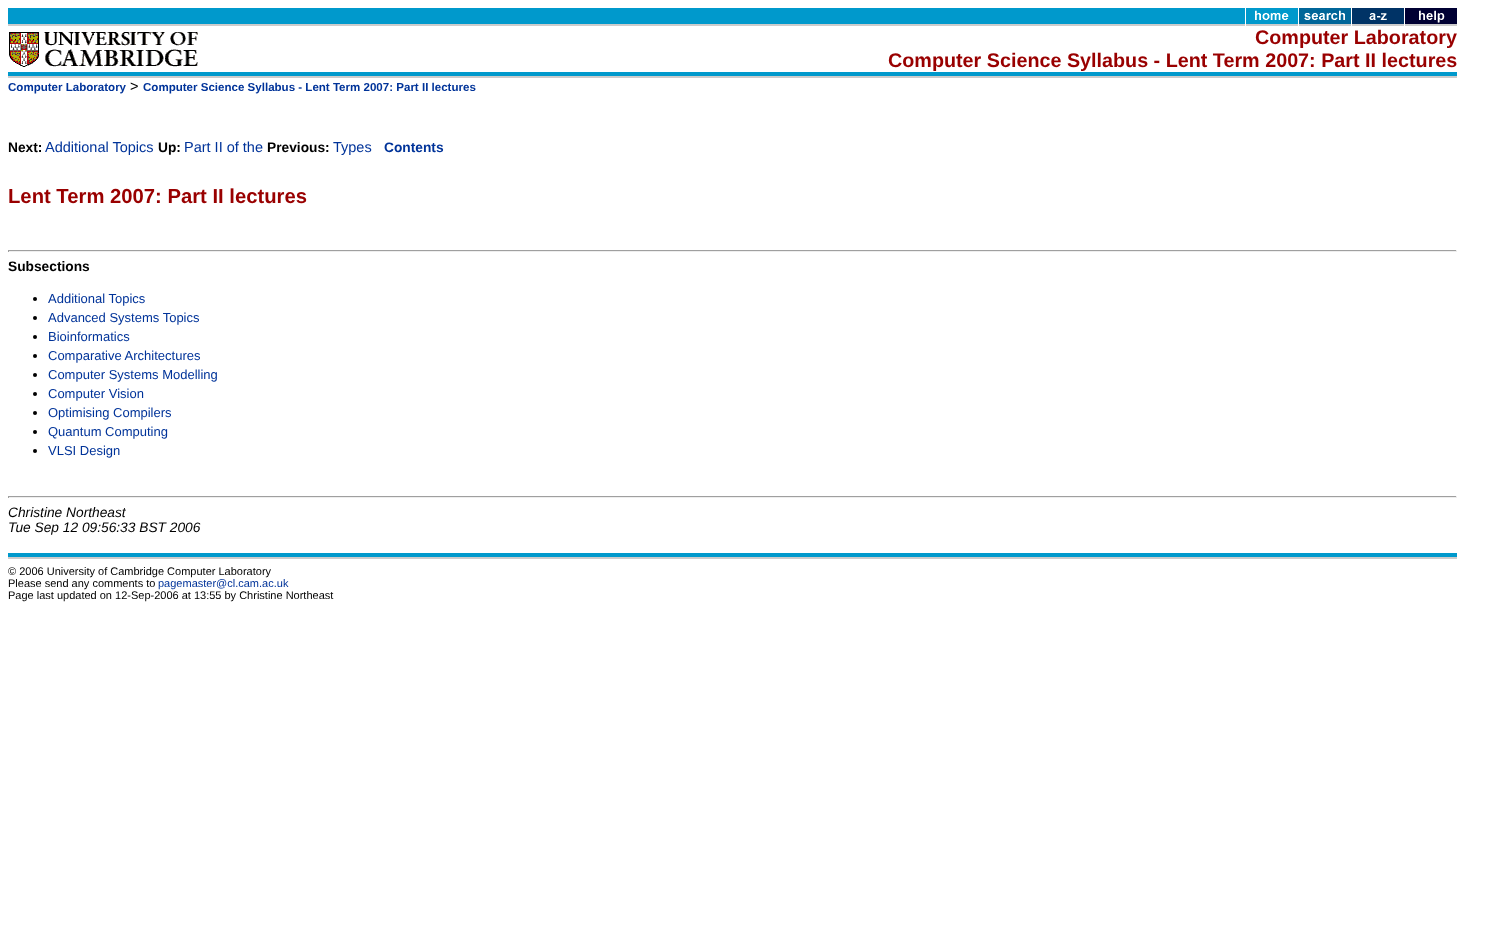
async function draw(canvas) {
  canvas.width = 1495;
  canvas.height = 952;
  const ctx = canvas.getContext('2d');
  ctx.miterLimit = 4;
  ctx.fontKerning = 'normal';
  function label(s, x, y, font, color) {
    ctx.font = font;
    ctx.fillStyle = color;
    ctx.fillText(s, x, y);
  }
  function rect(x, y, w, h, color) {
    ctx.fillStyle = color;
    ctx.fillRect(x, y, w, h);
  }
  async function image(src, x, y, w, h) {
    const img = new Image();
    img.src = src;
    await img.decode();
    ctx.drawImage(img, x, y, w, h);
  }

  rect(0, 0, 1495, 952, '#fff');
  rect(8, 8, 1237, 16, '#09c');
  await image('assets/img1.png', 1246, 8, 52, 18);
  await image('assets/img2.png', 1299, 8, 52, 18);
  await image('assets/img3.png', 1352, 8, 52, 18);
  await image('assets/img4.png', 1405, 8, 52, 18);
  rect(8, 24, 1237, 2, '#ccc');
  await image('assets/img5.png', 9, 32, 189, 35);
  label('Computer Laboratory', 1255, 44, 'bold 19.75px Liberation Sans', '#900');
  label('Computer Science Syllabus - Lent Term 2007: Part II lectures', 888, 67, 'bold 19.75px Liberation Sans', '#900');
  rect(8, 72, 1449, 4, '#09c');
  rect(8, 76, 1449, 2, '#ccc');
  label('Computer Laboratory', 8, 91, 'bold 11.55px Liberation Sans', '#039');
  label('>', 130, 91, '14.5px Liberation Sans', '#000');
  label('Computer Science Syllabus - Lent Term 2007: Part II lectures', 143, 91, 'bold 11.55px Liberation Sans', '#039');
  label('Next:', 8, 152, 'bold 13.75px Liberation Sans', '#000');
  label('Additional Topics', 45, 152, '14.5px Liberation Sans', '#039');
  label('Up:', 158, 152, 'bold 13.75px Liberation Sans', '#000');
  label('Part II of the', 184, 152, '14.5px Liberation Sans', '#039');
  label('Previous:', 267, 152, 'bold 13.75px Liberation Sans', '#000');
  label('Types', 333, 152, '14.5px Liberation Sans', '#039');
  label('Contents', 384, 152, 'bold 13.75px Liberation Sans', '#039');
  label('Lent Term 2007: Part II lectures', 8, 203, 'bold 20.25px Liberation Sans', '#900');
  rect(8, 250, 1449, 1, '#9f9f9f');
  rect(1456, 250, 1, 2, '#eee');
  rect(8, 251, 1449, 1, '#eee');
  rect(8, 250, 1, 2, '#9f9f9f');
  label('Subsections', 8, 271, 'bold 13.75px Liberation Sans', '#000');
  ctx.beginPath();
  ctx.arc(35, 299, 2, 0, 2 * Math.PI);
  ctx.fill();
  label('Additional Topics', 48, 303, '13px Liberation Sans', '#039');
  ctx.fillStyle = '#000';
  ctx.beginPath();
  ctx.arc(35, 318, 2, 0, 2 * Math.PI);
  ctx.fill();
  label('Advanced Systems Topics', 48, 322, '13px Liberation Sans', '#039');
  ctx.fillStyle = '#000';
  ctx.beginPath();
  ctx.arc(35, 337, 2, 0, 2 * Math.PI);
  ctx.fill();
  label('Bioinformatics', 48, 341, '13px Liberation Sans', '#039');
  ctx.fillStyle = '#000';
  ctx.beginPath();
  ctx.arc(35, 356, 2, 0, 2 * Math.PI);
  ctx.fill();
  label('Comparative Architectures', 48, 360, '13px Liberation Sans', '#039');
  ctx.fillStyle = '#000';
  ctx.beginPath();
  ctx.arc(35, 375, 2, 0, 2 * Math.PI);
  ctx.fill();
  label('Computer Systems Modelling', 48, 379, '13px Liberation Sans', '#039');
  ctx.fillStyle = '#000';
  ctx.beginPath();
  ctx.arc(35, 394, 2, 0, 2 * Math.PI);
  ctx.fill();
  label('Computer Vision', 48, 398, '13px Liberation Sans', '#039');
  ctx.fillStyle = '#000';
  ctx.beginPath();
  ctx.arc(35, 413, 2, 0, 2 * Math.PI);
  ctx.fill();
  label('Optimising Compilers', 48, 417, '13px Liberation Sans', '#039');
  ctx.fillStyle = '#000';
  ctx.beginPath();
  ctx.arc(35, 432, 2, 0, 2 * Math.PI);
  ctx.fill();
  label('Quantum Computing', 48, 436, '13px Liberation Sans', '#039');
  ctx.fillStyle = '#000';
  ctx.beginPath();
  ctx.arc(35, 451, 2, 0, 2 * Math.PI);
  ctx.fill();
  label('VLSI Design', 48, 455, '13px Liberation Sans', '#039');
  rect(8, 496, 1449, 1, '#9f9f9f');
  rect(1456, 496, 1, 2, '#eee');
  rect(8, 497, 1449, 1, '#eee');
  rect(8, 496, 1, 2, '#9f9f9f');
  label('Christine Northeast', 8, 517, 'italic 13.75px Liberation Sans', '#000');
  label('Tue Sep 12 09:56:33 BST 2006', 8, 532, 'italic 13.75px Liberation Sans', '#000');
  rect(8, 553, 1449, 4, '#09c');
  rect(8, 557, 1449, 2, '#ccc');
  label('© 2006 University of Cambridge Computer Laboratory', 8, 575, '11px Liberation Sans', '#000');
  label('Please send any comments to', 8, 587, '11px Liberation Sans', '#000');
  label('pagemaster@cl.cam.ac.uk', 158, 587, '11px Liberation Sans', '#039');
  label('Page last updated on 12-Sep-2006 at 13:55 by Christine Northeast', 8, 599, '11px Liberation Sans', '#000');
}

draw(document.querySelector('canvas'));
